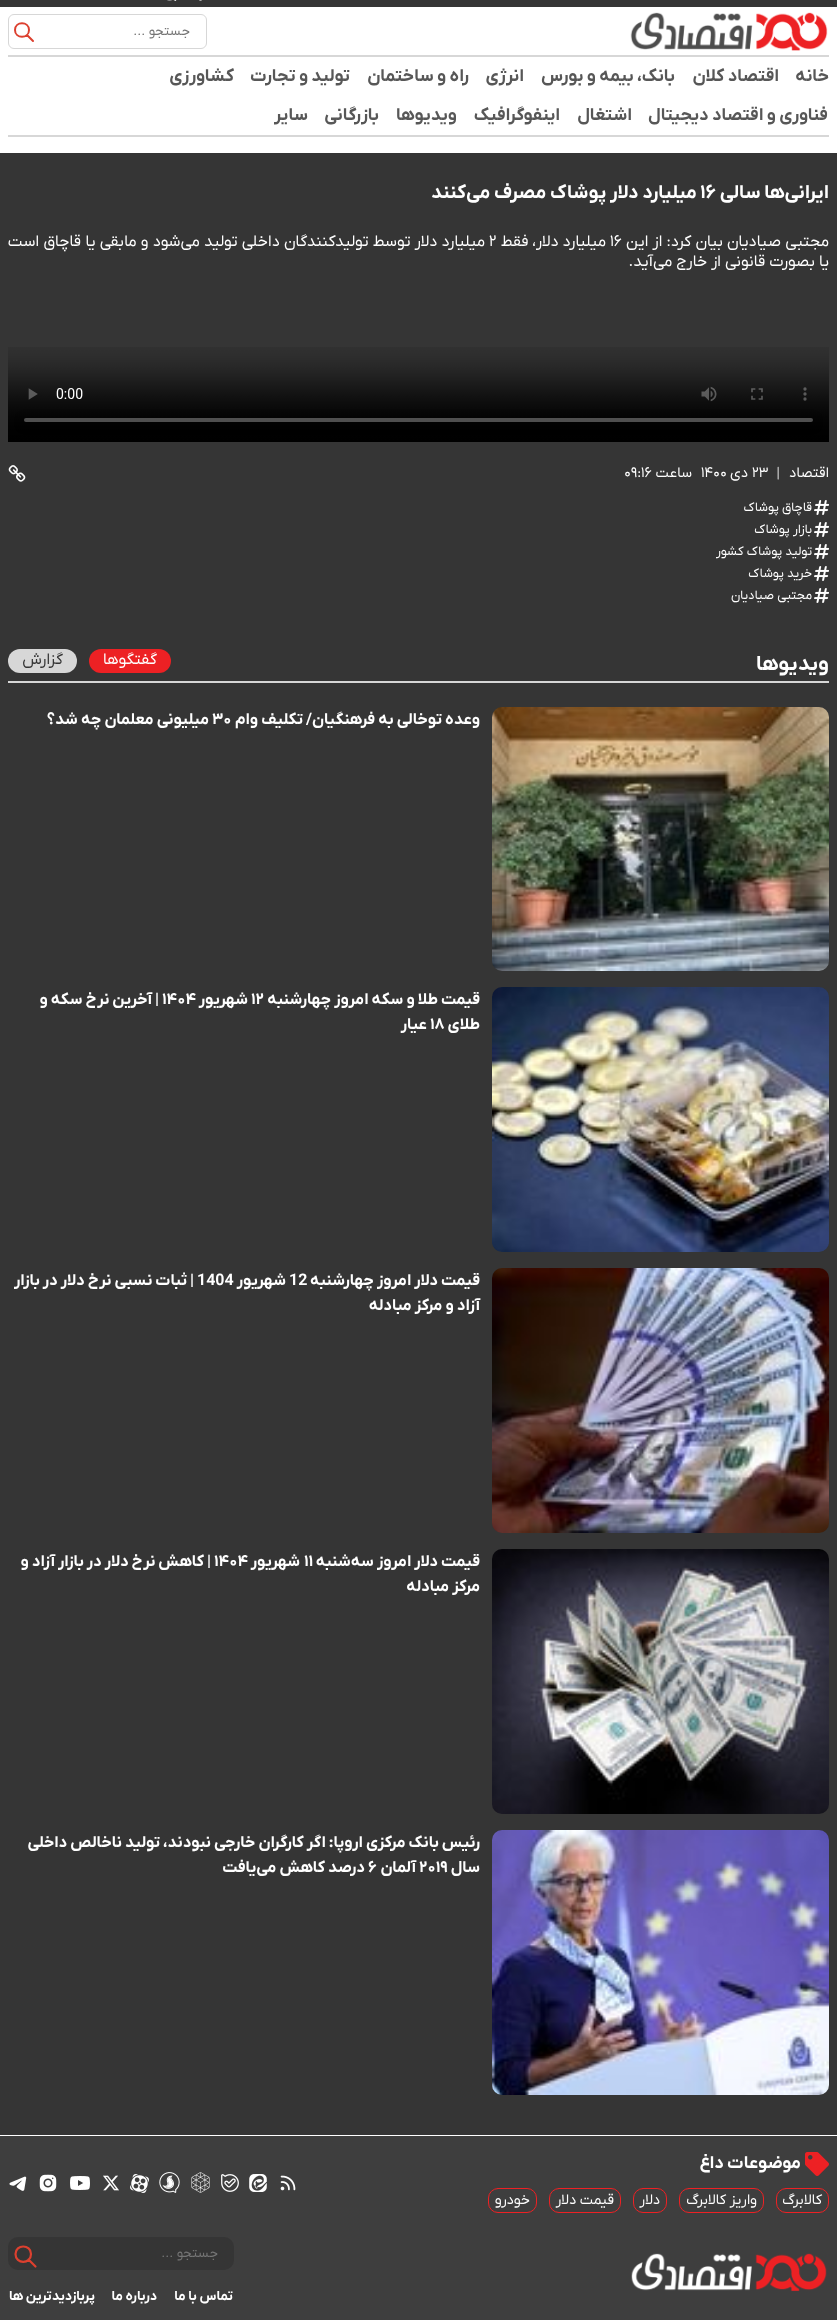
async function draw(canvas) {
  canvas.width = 837;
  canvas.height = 2320;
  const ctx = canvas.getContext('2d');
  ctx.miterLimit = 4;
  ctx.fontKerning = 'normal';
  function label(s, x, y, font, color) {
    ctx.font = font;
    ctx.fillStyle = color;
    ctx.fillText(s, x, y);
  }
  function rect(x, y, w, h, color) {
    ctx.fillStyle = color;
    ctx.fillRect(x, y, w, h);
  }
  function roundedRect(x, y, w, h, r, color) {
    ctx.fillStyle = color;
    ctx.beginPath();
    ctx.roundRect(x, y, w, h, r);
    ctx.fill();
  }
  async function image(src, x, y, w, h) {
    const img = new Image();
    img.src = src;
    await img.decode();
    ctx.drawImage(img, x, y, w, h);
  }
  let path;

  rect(0, 0, 837, 2320, '#fff');
  rect(0, 0, 837, 7, '#353535');
  await image('assets/img1.png', 199, 0, 3, 1);
  await image('assets/img2.png', 167, 0, 10, 1);
  await image('assets/img3.png', 630, 12, 198, 39);
  ctx.beginPath();
  ctx.roundRect(8.5, 14.5, 198, 34, 5.5);
  ctx.strokeStyle = '#d7d7d7';
  ctx.stroke();
  ctx.direction = 'rtl';
  label('جستجو ...', 190, 35, '13.5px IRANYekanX', '#757575');
  path = new Path2D('M15 30C15 39 29 39 29 30C29 21 15 21 15 30M33 41L27 35');
  ctx.strokeStyle = '#dc402f';
  ctx.lineWidth = 2;
  ctx.lineCap = 'round';
  ctx.lineJoin = 'round';
  ctx.stroke(path);
  rect(8, 55, 821, 2, '#d7d7d7');
  rect(8, 135, 821, 2, '#d7d7d7');
  label('خانه', 829, 81, 'bold 17.6px IRANYekanX', '#575757');
  label('اقتصاد کلان', 779, 81, 'bold 17.6px IRANYekanX', '#575757');
  label('بانک، بیمه و بورس', 675, 81, 'bold 17.6px IRANYekanX', '#575757');
  label('انرژی', 524, 81, 'bold 17.6px IRANYekanX', '#575757');
  label('راه و ساختمان', 469, 81, 'bold 17.6px IRANYekanX', '#575757');
  label('تولید و تجارت', 350, 81, 'bold 17.6px IRANYekanX', '#575757');
  label('کشاورزی', 234, 81, 'bold 17.6px IRANYekanX', '#575757');
  label('فناوری و اقتصاد دیجیتال', 828, 120, 'bold 17.6px IRANYekanX', '#575757');
  label('اشتغال', 632, 120, 'bold 17.6px IRANYekanX', '#575757');
  label('اینفوگرافیک', 560, 120, 'bold 17.6px IRANYekanX', '#575757');
  label('ویدیوها', 457, 120, 'bold 17.6px IRANYekanX', '#575757');
  label('بازرگانی', 379, 120, 'bold 17.6px IRANYekanX', '#575757');
  label('سایر', 308, 120, 'bold 17.6px IRANYekanX', '#575757');
  rect(0, 153, 837, 1982, '#353535');
  label('ایرانی‌ها سالی', 829, 198, 'bold 19.25px IRANYekanX', '#fff');
  ctx.direction = 'ltr';
  label('۱۶', 700, 198, 'bold 19.25px IRANYekanX', '#fff');
  ctx.direction = 'rtl';
  label('میلیارد دلار پوشاک مصرف می‌کنند', 697, 198, 'bold 19.25px IRANYekanX', '#fff');
  ctx.wordSpacing = '0.25px';
  label('مجتبی صیادیان بیان کرد: از این', 829, 246, '16px IRANYekanX', '#fff');
  ctx.wordSpacing = '0px';
  ctx.direction = 'ltr';
  label('۱۶', 610, 246, '16px IRANYekanX', '#fff');
  ctx.direction = 'rtl';
  label('میلیارد دلار، فقط', 606, 246, '16px IRANYekanX', '#fff');
  ctx.direction = 'ltr';
  label('۲', 489, 246, '16px IRANYekanX', '#fff');
  ctx.wordSpacing = '0.25px';
  ctx.direction = 'rtl';
  label('میلیارد دلار توسط تولیدکنندگان داخلی تولید می‌شود و مابقی یا قاچاق است', 485, 246, '16px IRANYekanX', '#fff');
  ctx.wordSpacing = '0px';
  label('آید.', 653, 266, '16px IRANYekanX', '#fff');
  label('یا بصورت قانونی از خارج می', 829, 266, '16px IRANYekanX', '#fff');
  await image('assets/img4.png', 8, 347, 821, 95);
  label('اقتصاد', 829, 477, '14.5px IRANYekanX', '#fff');
  await image('assets/img5.png', 777, 466, 2, 14);
  ctx.direction = 'ltr';
  label('۲۳', 752, 477, '14.5px IRANYekanX', '#fff');
  ctx.direction = 'rtl';
  label('دی', 748, 477, '14.5px IRANYekanX', '#fff');
  ctx.direction = 'ltr';
  label('۱۴۰۰', 701, 477, '14.5px IRANYekanX', '#fff');
  ctx.direction = 'rtl';
  label('ساعت', 692, 477, '14.5px IRANYekanX', '#fff');
  ctx.direction = 'ltr';
  label('۰۹:۱۶', 624, 477, '14.5px IRANYekanX', '#fff');
  await image('assets/img6.png', 8, 465, 18, 17);
  await image('assets/img7.png', 814, 500, 15, 15);
  ctx.direction = 'rtl';
  label('قاچاق پوشاک', 812, 511, '12.75px IRANYekanX', '#fff');
  await image('assets/img7.png', 814, 522, 15, 15);
  label('بازار پوشاک', 812, 533, '12.75px IRANYekanX', '#fff');
  await image('assets/img7.png', 814, 544, 15, 15);
  label('تولید پوشاک کشور', 812, 555, '12.75px IRANYekanX', '#fff');
  await image('assets/img7.png', 814, 566, 15, 15);
  label('خرید پوشاک', 812, 577, '12.75px IRANYekanX', '#fff');
  await image('assets/img7.png', 814, 588, 15, 15);
  label('مجتبی صیادیان', 812, 599, '12.75px IRANYekanX', '#fff');
  rect(8, 681, 821, 2, '#d7d7d7');
  label('ویدیوها', 829, 670, 'bold 21px IRANYekanX', '#fff');
  roundedRect(89, 649, 82, 24, 12, '#ed2124');
  label('گفتگوها', 157, 664, '16px IRANYekanX', '#fff');
  roundedRect(8, 649, 69, 24, 12, '#d7d7d7');
  label('گزارش', 63, 664, '16px IRANYekanX', '#353535');
  await image('assets/img8.png', 492, 707, 337, 264);
  label('وعده توخالی به فرهنگیان/ تکلیف وام', 480, 724, 'bold 16px IRANYekanX', '#fff');
  ctx.direction = 'ltr';
  label('۳۰', 212, 724, 'bold 16px IRANYekanX', '#fff');
  ctx.direction = 'rtl';
  label('میلیونی معلمان چه شد؟', 209, 724, 'bold 16px IRANYekanX', '#fff');
  await image('assets/img9.png', 492, 987, 337, 265);
  label('قیمت طلا و سکه امروز چهارشنبه', 480, 1004, 'bold 16px IRANYekanX', '#fff');
  ctx.direction = 'ltr';
  label('۱۲', 251, 1004, 'bold 16px IRANYekanX', '#fff');
  ctx.direction = 'rtl';
  label('شهریور', 248, 1004, 'bold 16px IRANYekanX', '#fff');
  ctx.direction = 'ltr';
  label('۱۴۰۴', 162, 1004, 'bold 16px IRANYekanX', '#fff');
  ctx.direction = 'rtl';
  label('| آخرین نرخ سکه و', 159, 1004, 'bold 16px IRANYekanX', '#fff');
  label('طلای', 480, 1029, 'bold 16px IRANYekanX', '#fff');
  ctx.direction = 'ltr';
  label('۱۸', 430, 1029, 'bold 16px IRANYekanX', '#fff');
  ctx.direction = 'rtl';
  label('عیار', 427, 1029, 'bold 16px IRANYekanX', '#fff');
  await image('assets/img10.png', 492, 1268, 337, 265);
  label('قیمت دلار امروز چهارشنبه', 480, 1285, 'bold 16px IRANYekanX', '#fff');
  ctx.direction = 'ltr';
  label('12', 289, 1285, 'bold 16px IRANYekanX', '#fff');
  ctx.direction = 'rtl';
  label('شهریور', 286, 1285, 'bold 16px IRANYekanX', '#fff');
  ctx.direction = 'ltr';
  label('1404', 197, 1285, 'bold 16px IRANYekanX', '#fff');
  ctx.direction = 'rtl';
  label('| ثبات نسبی نرخ دلار در بازار', 194, 1285, 'bold 16px IRANYekanX', '#fff');
  label('آزاد و مرکز مبادله', 480, 1310, 'bold 16px IRANYekanX', '#fff');
  await image('assets/img11.png', 492, 1549, 337, 265);
  label('قیمت دلار امروز سه‌شنبه', 480, 1566, 'bold 16px IRANYekanX', '#fff');
  ctx.direction = 'ltr';
  label('۱۱', 304, 1566, 'bold 16px IRANYekanX', '#fff');
  ctx.direction = 'rtl';
  label('شهریور', 300, 1566, 'bold 16px IRANYekanX', '#fff');
  ctx.direction = 'ltr';
  label('۱۴۰۴', 214, 1566, 'bold 16px IRANYekanX', '#fff');
  ctx.direction = 'rtl';
  label('| کاهش نرخ دلار در بازار آزاد و', 211, 1566, 'bold 16px IRANYekanX', '#fff');
  label('مرکز مبادله', 480, 1591, 'bold 16px IRANYekanX', '#fff');
  await image('assets/img12.png', 492, 1830, 337, 265);
  label('رئیس بانک مرکزی اروپا: اگر کارگران خارجی نبودند، تولید ناخالص داخلی', 480, 1847, 'bold 16px IRANYekanX', '#fff');
  label('سال', 480, 1872, 'bold 16px IRANYekanX', '#fff');
  ctx.direction = 'ltr';
  label('۲۰۱۹', 419, 1872, 'bold 16px IRANYekanX', '#fff');
  ctx.direction = 'rtl';
  label('آلمان', 416, 1872, 'bold 16px IRANYekanX', '#fff');
  ctx.direction = 'ltr';
  label('۶', 368, 1872, 'bold 16px IRANYekanX', '#fff');
  ctx.direction = 'rtl';
  label('درصد کاهش می‌یافت', 365, 1872, 'bold 16px IRANYekanX', '#fff');
  rect(0, 2136, 837, 184, '#3e3e3e');
  await image('assets/img13.png', 805, 2152, 24, 24);
  label('موضوعات داغ', 801, 2168, 'bold 17.6px IRANYekanX', '#fff');
  ctx.beginPath();
  ctx.roundRect(776.5, 2188.5, 52, 24, 9.5);
  ctx.strokeStyle = '#ed2124';
  ctx.lineWidth = 1;
  ctx.lineJoin = 'miter';
  ctx.stroke();
  label('کالابرگ', 822, 2204, '14.5px IRANYekanX', '#fff');
  ctx.beginPath();
  ctx.roundRect(679.5, 2188.5, 84, 24, 9.5);
  ctx.stroke();
  label('واریز کالابرگ', 757, 2204, '14.5px IRANYekanX', '#fff');
  ctx.beginPath();
  ctx.roundRect(633.5, 2188.5, 33, 24, 9.5);
  ctx.stroke();
  label('دلار', 660, 2204, '14.5px IRANYekanX', '#fff');
  ctx.beginPath();
  ctx.roundRect(549.5, 2188.5, 71, 24, 9.5);
  ctx.stroke();
  label('قیمت دلار', 614, 2204, '14.5px IRANYekanX', '#fff');
  ctx.beginPath();
  ctx.roundRect(488.5, 2188.5, 48, 24, 9.5);
  ctx.stroke();
  label('خودرو', 530, 2204, '14.5px IRANYekanX', '#fff');
  await image('assets/img14.png', 280, 2175, 16, 16);
  await image('assets/img15.png', 249, 2174, 18, 18);
  await image('assets/img16.png', 221, 2174, 18, 18);
  await image('assets/img17.png', 191, 2172, 19, 21);
  await image('assets/img18.png', 159, 2172, 21, 21);
  await image('assets/img19.png', 130, 2174, 19, 19);
  await image('assets/img20.png', 103, 2175, 16, 16);
  await image('assets/img21.png', 70, 2176, 20, 14);
  await image('assets/img22.png', 39, 2174, 18, 18);
  await image('assets/img23.png', 9, 2176, 18, 15);
  await image('assets/img24.png', 631, 2253, 196, 39);
  roundedRect(8, 2237, 226, 33, 10, '#353535');
  label('جستجو ...', 218, 2257, '13.5px IRANYekanX', '#757575');
  path = new Path2D('M15.5 2254C15.5 2264.5 31 2264.5 31 2254C31 2244 15.5 2244 15.5 2254M35.5 2266.5L28.5 2259.5');
  ctx.strokeStyle = '#dc402f';
  ctx.lineWidth = 2.2;
  ctx.lineJoin = 'round';
  ctx.stroke(path);
  label('تماس با ما', 233, 2300, 'bold 13.5px IRANYekanX', '#fff');
  label('درباره ما', 157, 2300, 'bold 13.5px IRANYekanX', '#fff');
  label('پربازدیدترین ها', 95, 2300, 'bold 13.5px IRANYekanX', '#fff');
}

draw(document.querySelector('canvas'));
